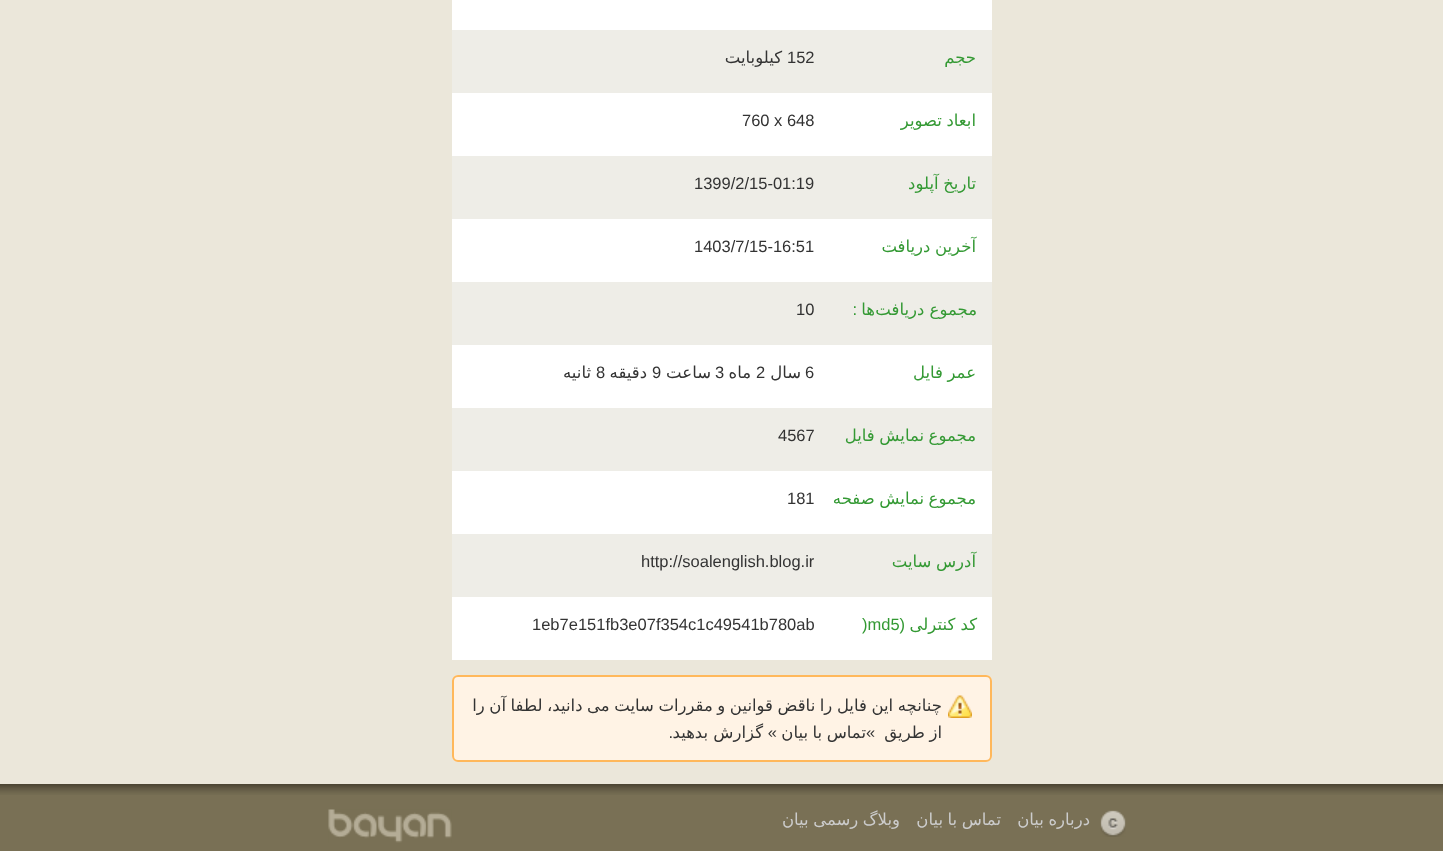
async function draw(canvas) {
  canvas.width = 1443;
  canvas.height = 851;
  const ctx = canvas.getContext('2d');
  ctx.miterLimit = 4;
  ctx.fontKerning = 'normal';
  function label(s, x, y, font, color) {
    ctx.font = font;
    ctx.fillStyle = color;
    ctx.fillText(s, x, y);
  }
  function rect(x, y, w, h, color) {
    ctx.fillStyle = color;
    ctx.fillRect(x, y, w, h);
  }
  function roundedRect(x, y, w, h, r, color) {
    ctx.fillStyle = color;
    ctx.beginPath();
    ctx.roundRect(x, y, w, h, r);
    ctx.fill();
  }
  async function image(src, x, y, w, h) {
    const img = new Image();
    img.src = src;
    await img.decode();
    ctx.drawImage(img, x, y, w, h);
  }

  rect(0, 0, 1443, 851, '#ebe7da');
  rect(452, 0, 540, 660, '#fff');
  rect(452, 30, 540, 63, '#eeede7');
  ctx.direction = 'rtl';
  label('حجم', 976, 63, '16.5px DejaVu Sans', '#393');
  ctx.direction = 'ltr';
  label('152', 787, 63, '16.5px Liberation Sans', '#333');
  ctx.direction = 'rtl';
  label('کیلوبایت', 782, 63, '16.5px DejaVu Sans', '#333');
  ctx.wordSpacing = '-0.7px';
  label('ابعاد تصویر', 976, 126, '16.5px DejaVu Sans', '#393');
  ctx.wordSpacing = '0px';
  ctx.direction = 'ltr';
  label('760 x 648', 742, 126, '16.5px Liberation Sans', '#333');
  rect(452, 156, 540, 63, '#eeede7');
  ctx.wordSpacing = '-0.7px';
  ctx.direction = 'rtl';
  label('تاریخ آپلود', 976, 189, '16.5px DejaVu Sans', '#393');
  ctx.wordSpacing = '0px';
  ctx.direction = 'ltr';
  label('1399/2/15-01:19', 694, 189, '16.5px Liberation Sans', '#333');
  ctx.wordSpacing = '-0.7px';
  ctx.direction = 'rtl';
  label('آخرین دریافت', 976, 252, '16.5px DejaVu Sans', '#393');
  ctx.wordSpacing = '0px';
  ctx.direction = 'ltr';
  label('1403/7/15-16:51', 694, 252, '16.5px Liberation Sans', '#333');
  rect(452, 282, 540, 63, '#eeede7');
  ctx.direction = 'rtl';
  label('مجموع دریافت', 977, 315, '16.5px DejaVu Sans', '#393');
  label('ها', 875, 315, '16.5px DejaVu Sans', '#393');
  label(':', 857, 315, '16.5px Liberation Sans', '#393');
  ctx.direction = 'ltr';
  label('10', 796, 315, '16.5px Liberation Sans', '#333');
  ctx.wordSpacing = '-0.7px';
  ctx.direction = 'rtl';
  label('عمر فایل', 976, 378, '16.5px DejaVu Sans', '#393');
  ctx.wordSpacing = '0px';
  ctx.direction = 'ltr';
  label('6', 805, 378, '16.5px Liberation Sans', '#333');
  ctx.direction = 'rtl';
  label('سال', 801, 378, '16.5px DejaVu Sans', '#333');
  ctx.direction = 'ltr';
  label('2', 756, 378, '16.5px Liberation Sans', '#333');
  ctx.direction = 'rtl';
  label('ماه', 751, 378, '16.5px DejaVu Sans', '#333');
  ctx.direction = 'ltr';
  label('3', 715, 378, '16.5px Liberation Sans', '#333');
  ctx.direction = 'rtl';
  label('ساعت', 711, 378, '16.5px DejaVu Sans', '#333');
  ctx.direction = 'ltr';
  label('9', 652, 378, '16.5px Liberation Sans', '#333');
  ctx.direction = 'rtl';
  label('دقیقه', 647, 378, '16.5px DejaVu Sans', '#333');
  ctx.direction = 'ltr';
  label('8', 596, 378, '16.5px Liberation Sans', '#333');
  ctx.direction = 'rtl';
  label('ثانیه', 591, 378, '16.5px DejaVu Sans', '#333');
  rect(452, 408, 540, 63, '#eeede7');
  ctx.wordSpacing = '-0.7px';
  label('مجموع نمایش فایل', 976, 441, '16.5px DejaVu Sans', '#393');
  ctx.wordSpacing = '0px';
  ctx.direction = 'ltr';
  label('4567', 778, 441, '16.5px Liberation Sans', '#333');
  ctx.wordSpacing = '-0.7px';
  ctx.direction = 'rtl';
  label('مجموع نمایش صفحه', 976, 504, '16.5px DejaVu Sans', '#393');
  ctx.wordSpacing = '0px';
  ctx.direction = 'ltr';
  label('181', 787, 504, '16.5px Liberation Sans', '#333');
  rect(452, 534, 540, 63, '#eeede7');
  ctx.wordSpacing = '-0.7px';
  ctx.direction = 'rtl';
  label('آدرس سایت', 976, 567, '16.5px DejaVu Sans', '#393');
  ctx.wordSpacing = '0px';
  ctx.direction = 'ltr';
  label('http://soalenglish.blog.ir', 641, 567, '16.5px Liberation Sans', '#333');
  ctx.direction = 'rtl';
  label('کد کنترلی', 977, 630, '16.5px DejaVu Sans', '#393');
  label('(', 905, 630, '16.5px Liberation Sans', '#393');
  ctx.direction = 'ltr';
  label(')md5', 862, 630, '16.5px Liberation Sans', '#393');
  label('1eb7e151fb3e07f354c1c49541b780ab', 532, 630, '16.5px Liberation Sans', '#333');
  roundedRect(452, 675, 540, 87, 6, '#fff3e5');
  await image('assets/img1.png', 948, 695, 24, 23);
  ctx.beginPath();
  ctx.roundRect(453, 676, 538, 85, 5);
  ctx.strokeStyle = '#ffb85b';
  ctx.lineWidth = 2;
  ctx.stroke();
  ctx.wordSpacing = '-0.7px';
  ctx.direction = 'rtl';
  label('چنانچه اين فايل را ناقض قوانين و مقررات سايت می دانيد، لطفا آن را', 942, 711, '16.5px DejaVu Sans', '#333');
  label('از طریق', 942, 738, '16.5px DejaVu Sans', '#333');
  ctx.wordSpacing = '0px';
  ctx.direction = 'ltr';
  label('«', 866, 738, '16.5px Liberation Sans', '#333');
  ctx.wordSpacing = '-0.7px';
  ctx.direction = 'rtl';
  label('تماس با بیان', 866, 738, '16.5px DejaVu Sans', '#333');
  ctx.wordSpacing = '0px';
  label('»', 777, 738, '16.5px Liberation Sans', '#333');
  label('گزارش بدهید', 763, 738, '16.5px DejaVu Sans', '#333');
  label('.', 673, 738, '16.5px Liberation Sans', '#333');
  rect(0, 795, 1443, 56, '#797055');
  await image('assets/img2.png', 0, 784, 1443, 11);
  await image('assets/img3.png', 1100, 810, 26, 27);
  ctx.wordSpacing = '-0.7px';
  label('درباره بیان', 1090, 825, '16.5px DejaVu Sans', '#ccc');
  label('تماس با بیان', 1001, 825, '16.5px DejaVu Sans', '#ccc');
  label('وبلاگ رسمی بیان', 900, 825, '16.5px DejaVu Sans', '#ccc');
  await image('assets/img4.png', 328, 809, 124, 34);
}

draw(document.querySelector('canvas'));
